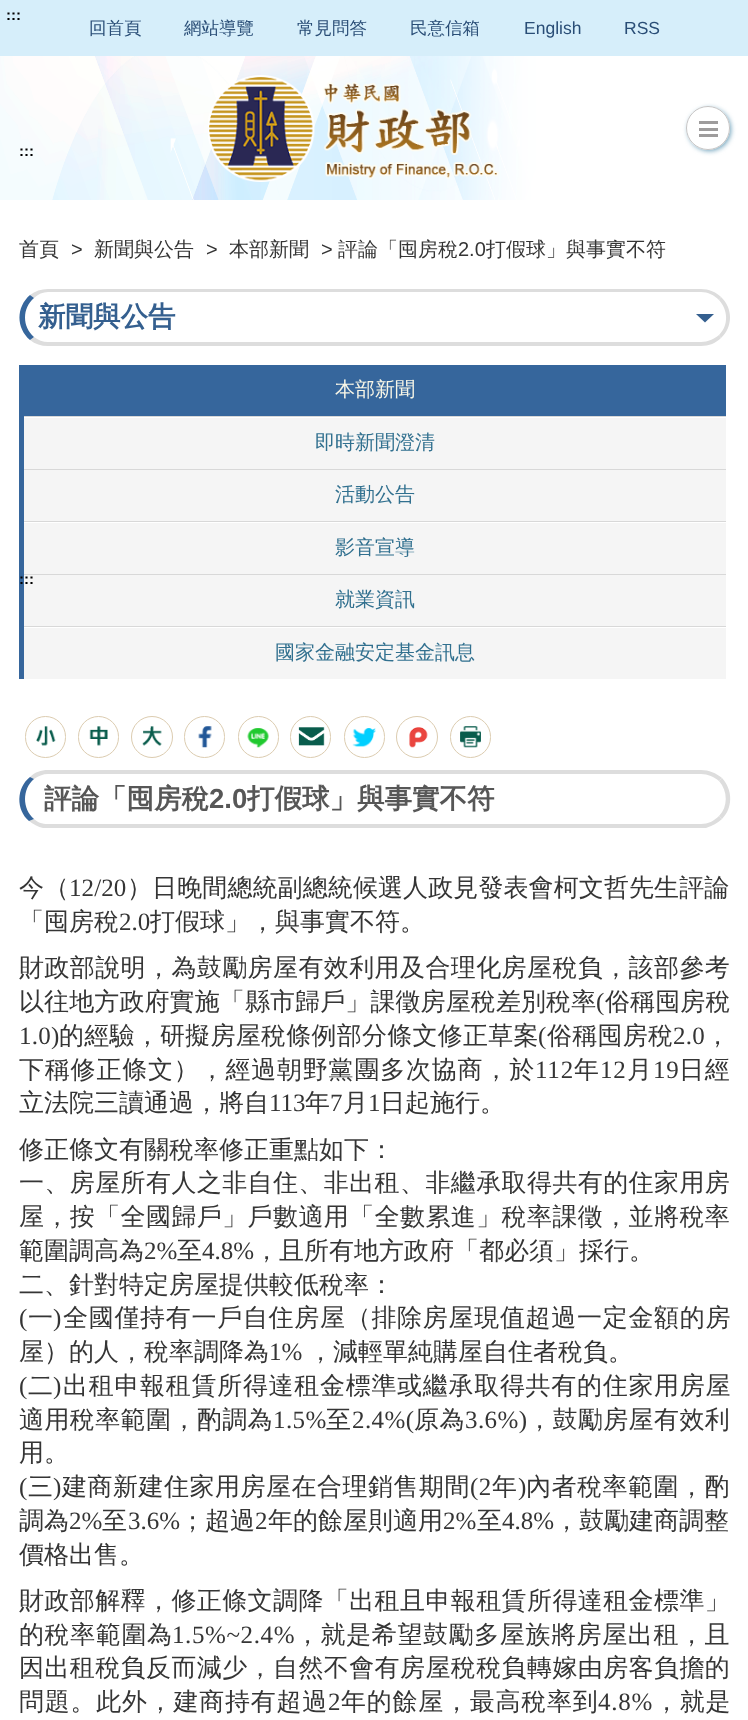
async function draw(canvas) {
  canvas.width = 748;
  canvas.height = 1720;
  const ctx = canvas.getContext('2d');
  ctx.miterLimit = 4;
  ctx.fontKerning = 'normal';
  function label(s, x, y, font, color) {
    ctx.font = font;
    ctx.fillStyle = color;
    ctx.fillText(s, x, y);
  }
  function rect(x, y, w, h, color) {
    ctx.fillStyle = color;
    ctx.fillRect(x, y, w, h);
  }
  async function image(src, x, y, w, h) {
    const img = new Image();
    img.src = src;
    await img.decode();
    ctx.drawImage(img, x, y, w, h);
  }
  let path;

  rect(0, 0, 748, 1720, '#fff');
  rect(0, 0, 748, 56, '#d6eefa');
  await image('assets/img1.png', 0, 56, 748, 144);
  label(':::', 6, 20, 'bold 15px Liberation Sans', '#000');
  label('回首頁', 89, 34, '500 17.5px WenQuanYi Zen Hei', '#294d76');
  label('網站導覽', 184, 34, '500 17.5px WenQuanYi Zen Hei', '#294d76');
  label('常見問答', 297, 34, '500 17.5px WenQuanYi Zen Hei', '#294d76');
  label('民意信箱', 410, 34, '500 17.5px WenQuanYi Zen Hei', '#294d76');
  label('English', 524, 34, '17.5px Liberation Sans', '#294d76');
  label('RSS', 624, 34, '17.5px Liberation Sans', '#294d76');
  await image('assets/img2.png', 208, 75, 291, 107);
  ctx.save();
  path = new Path2D('M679 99H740V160H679ZM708 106C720 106 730 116 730 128C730 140 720 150 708 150C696 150 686 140 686 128C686 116 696 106 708 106Z');
  ctx.clip(path, 'evenodd');
  ctx.fillStyle = '#6da1bb';
  ctx.filter = 'blur(2.5px)';
  ctx.beginPath();
  ctx.roundRect(688, 108, 43, 43, 21.5);
  ctx.fill();
  ctx.filter = 'none';
  ctx.restore();
  ctx.beginPath();
  ctx.arc(708, 128, 21.5, 0, 2 * Math.PI);
  ctx.strokeStyle = '#c5c4c4';
  ctx.stroke();
  rect(699, 121, 19, 3, '#9e9c9c');
  rect(699, 128, 19, 3, '#9e9c9c');
  rect(699, 134, 19, 3, '#9e9c9c');
  label(':::', 19, 156, 'bold 15px Liberation Sans', '#000');
  ctx.fillStyle = '#ddd';
  path = new Path2D('M48 289C41 289 35 291 30 295L34 298C38 294 43 292 48 292H701C708 292 714 295 719 300L721 297C716 292 709 289 701 289Z');
  ctx.fill(path);
  path = new Path2D('M721 297C733 308 733 327 721 338L719 335C729 325 728 310 719 300Z');
  ctx.fill(path);
  path = new Path2D('M721 338C716 343 709 346 701 346H48C41 346 35 344 30 340L34 337C38 340 43 342 48 342H701C708 342 714 339 719 335Z');
  ctx.fill(path);
  ctx.fillStyle = '#36669c';
  path = new Path2D('M30 295C16 307 16 328 30 340L34 337C22 327 22 308 34 298Z');
  ctx.fill(path);
  label('新聞與公告', 38, 326, 'bold 27.5px WenQuanYi Zen Hei', '#345f8f');
  path = new Path2D('M696 314H714L705 322.5Z');
  ctx.fill(path);
  rect(19, 365, 5, 314, '#36669c');
  rect(24, 365, 702, 51, '#36669c');
  label('本部新聞', 335, 396, '500 20px WenQuanYi Zen Hei', '#f8f6e7');
  rect(24, 416, 702, 1, '#d8d8d8');
  rect(24, 418, 702, 51, '#f5f5f5');
  label('即時新聞澄清', 315, 449, '500 20px WenQuanYi Zen Hei', '#31708f');
  rect(24, 469, 702, 1, '#d8d8d8');
  rect(24, 470, 702, 51, '#f5f5f5');
  label('活動公告', 335, 501, '500 20px WenQuanYi Zen Hei', '#31708f');
  rect(24, 521, 702, 1, '#d8d8d8');
  rect(24, 523, 702, 51, '#f5f5f5');
  label('影音宣導', 335, 554, '500 20px WenQuanYi Zen Hei', '#31708f');
  rect(24, 574, 702, 1, '#d8d8d8');
  rect(24, 575, 702, 51, '#f5f5f5');
  label('就業資訊', 335, 606, '500 20px WenQuanYi Zen Hei', '#31708f');
  rect(24, 626, 702, 1, '#d8d8d8');
  rect(24, 628, 702, 51, '#f5f5f5');
  label('國家金融安定基金訊息', 275, 659, '500 20px WenQuanYi Zen Hei', '#31708f');
  label(':::', 19, 584, 'bold 15px Liberation Sans', '#000');
  ctx.beginPath();
  ctx.roundRect(25.5, 716.5, 40, 41, 20);
  ctx.strokeStyle = '#dcccb0';
  ctx.stroke();
  await image('assets/img3.png', 36, 726, 20, 20);
  ctx.beginPath();
  ctx.roundRect(78.5, 716.5, 40, 41, 20);
  ctx.stroke();
  await image('assets/img4.png', 89, 726, 19, 20);
  ctx.beginPath();
  ctx.arc(152, 737, 20.5, 0, 2 * Math.PI);
  ctx.stroke();
  await image('assets/img5.png', 142, 726, 20, 20);
  ctx.beginPath();
  ctx.roundRect(184.5, 716.5, 40, 41, 20);
  ctx.stroke();
  await image('assets/img6.png', 198, 726, 14, 22);
  ctx.beginPath();
  ctx.roundRect(238.5, 716.5, 40, 41, 20);
  ctx.stroke();
  await image('assets/img7.png', 247, 728, 22, 20);
  ctx.beginPath();
  ctx.roundRect(290.5, 716.5, 40, 41, 20);
  ctx.stroke();
  await image('assets/img8.png', 298, 727, 27, 19);
  ctx.beginPath();
  ctx.roundRect(344.5, 716.5, 40, 41, 20);
  ctx.stroke();
  await image('assets/img9.png', 352, 728, 24, 19);
  ctx.beginPath();
  ctx.arc(417, 737, 20.5, 0, 2 * Math.PI);
  ctx.stroke();
  await image('assets/img10.png', 409, 727, 19, 21);
  ctx.beginPath();
  ctx.roundRect(450.5, 716.5, 40, 41, 20);
  ctx.stroke();
  await image('assets/img11.png', 460, 726, 21, 22);
  ctx.fillStyle = '#ddd';
  path = new Path2D('M48 770C41 770 35 772 30 777L34 779C38 776 43 774 48 774H701C708 774 714 777 719 781L722 778C716 773 709 770 701 770Z');
  ctx.fill(path);
  path = new Path2D('M722 778C733 790 733 808 722 819L719 816C728 807 728 791 719 781Z');
  ctx.fill(path);
  path = new Path2D('M43 828C38 827 33 824 29 821L34 819C37 822 42 824 48 824H701C708 824 714 821 719 816L722 819C718 823 712 826 706 828Z');
  ctx.fill(path);
  ctx.fillStyle = '#36669c';
  path = new Path2D('M30 777C16 788 16 810 29 821L34 819C22 809 22 789 34 779Z');
  ctx.fill(path);
  label('評論「囤房稅', 44, 808, 'bold 27.5px WenQuanYi Zen Hei', '#575757');
  label('2.0', 209, 808, 'bold 27.5px Liberation Sans', '#575757');
  label('打假球」與事實不符', 247, 808, 'bold 27.5px WenQuanYi Zen Hei', '#575757');
  ctx.letterSpacing = '0.1px';
  label('今（', 19, 896, '500 25px WenQuanYi Zen Hei', '#353535');
  label('12/20', 69, 896, '25px Liberation Serif', '#353535');
  label('）日晚間總統副總統候選人政見發表會柯文哲先生評論', 127, 896, '500 25px WenQuanYi Zen Hei', '#353535');
  ctx.letterSpacing = '0px';
  label('「囤房稅', 19, 930, '500 25px WenQuanYi Zen Hei', '#353535');
  label('2.0', 119, 930, '25px Liberation Serif', '#353535');
  label('打假球」，與事實不符。', 150, 930, '500 25px WenQuanYi Zen Hei', '#353535');
  ctx.letterSpacing = '0.4px';
  label('財政部說明，為鼓勵房屋有效利用及合理化房屋稅負，該部參考', 19, 976, '500 25px WenQuanYi Zen Hei', '#353535');
  ctx.letterSpacing = '0.1px';
  label('以往地方政府實施「縣市歸戶」課徵房屋稅差別稅率', 19, 1010, '500 25px WenQuanYi Zen Hei', '#353535');
  label('(', 596, 1010, '25px Liberation Serif', '#353535');
  label('俗稱囤房稅', 605, 1010, '500 25px WenQuanYi Zen Hei', '#353535');
  ctx.letterSpacing = '0.25px';
  label('1.0)', 19, 1044, '25px Liberation Serif', '#353535');
  label('的經驗，研擬房屋稅條例部分條文修正草案', 59, 1044, '500 25px WenQuanYi Zen Hei', '#353535');
  label('(', 538, 1044, '25px Liberation Serif', '#353535');
  label('俗稱囤房稅', 547, 1044, '500 25px WenQuanYi Zen Hei', '#353535');
  label('2.0', 673, 1044, '25px Liberation Serif', '#353535');
  label('，', 705, 1044, '500 25px WenQuanYi Zen Hei', '#353535');
  ctx.letterSpacing = '0.8px';
  label('下稱修正條文），經過朝野黨團多次協商，於', 19, 1078, '500 25px WenQuanYi Zen Hei', '#353535');
  label('112', 535, 1078, '25px Liberation Serif', '#353535');
  label('年', 574, 1078, '500 25px WenQuanYi Zen Hei', '#353535');
  label('12', 600, 1078, '25px Liberation Serif', '#353535');
  label('月', 627, 1078, '500 25px WenQuanYi Zen Hei', '#353535');
  label('19', 653, 1078, '25px Liberation Serif', '#353535');
  label('日經', 679, 1078, '500 25px WenQuanYi Zen Hei', '#353535');
  ctx.letterSpacing = '0px';
  label('立法院三讀通過，將自', 19, 1111, '500 25px WenQuanYi Zen Hei', '#353535');
  label('113', 269, 1111, '25px Liberation Serif', '#353535');
  label('年', 305, 1111, '500 25px WenQuanYi Zen Hei', '#353535');
  label('7', 330, 1111, '25px Liberation Serif', '#353535');
  label('月', 343, 1111, '500 25px WenQuanYi Zen Hei', '#353535');
  label('1', 368, 1111, '25px Liberation Serif', '#353535');
  label('日起施行。', 380, 1111, '500 25px WenQuanYi Zen Hei', '#353535');
  label('修正條文有關稅率修正重點如下：', 19, 1158, '500 25px WenQuanYi Zen Hei', '#353535');
  ctx.letterSpacing = '0.4px';
  label('一、房屋所有人之非自住、非出租、非繼承取得共有的住家用房', 19, 1191, '500 25px WenQuanYi Zen Hei', '#353535');
  label('屋，按「全國歸戶」戶數適用「全數累進」稅率課徵，並將稅率', 19, 1225, '500 25px WenQuanYi Zen Hei', '#353535');
  ctx.letterSpacing = '0px';
  label('範圍調高為', 19, 1259, '500 25px WenQuanYi Zen Hei', '#353535');
  label('2%', 144, 1259, '25px Liberation Serif', '#353535');
  label('至', 177, 1259, '500 25px WenQuanYi Zen Hei', '#353535');
  label('4.8%', 202, 1259, '25px Liberation Serif', '#353535');
  label('，且所有地方政府「都必須」採行。', 254, 1259, '500 25px WenQuanYi Zen Hei', '#353535');
  label('二、針對特定房屋提供較低稅率：', 19, 1293, '500 25px WenQuanYi Zen Hei', '#353535');
  ctx.letterSpacing = '0.7px';
  label('(', 19, 1326, '25px Liberation Serif', '#353535');
  label('一', 28, 1326, '500 25px WenQuanYi Zen Hei', '#353535');
  label(')', 53, 1326, '25px Liberation Serif', '#353535');
  label('全國僅持有一戶自住房屋（排除房屋現值超過一定金額的房', 63, 1326, '500 25px WenQuanYi Zen Hei', '#353535');
  ctx.letterSpacing = '0px';
  label('屋）的人，稅率調降為', 19, 1360, '500 25px WenQuanYi Zen Hei', '#353535');
  label('1%', 269, 1360, '25px Liberation Serif', '#353535');
  label('，減輕單純購屋自住者稅負。', 308, 1360, '500 25px WenQuanYi Zen Hei', '#353535');
  ctx.letterSpacing = '0.7px';
  label('(', 19, 1394, '25px Liberation Serif', '#353535');
  label('二', 28, 1394, '500 25px WenQuanYi Zen Hei', '#353535');
  label(')', 53, 1394, '25px Liberation Serif', '#353535');
  label('出租申報租賃所得達租金標準或繼承取得共有的住家用房屋', 63, 1394, '500 25px WenQuanYi Zen Hei', '#353535');
  ctx.letterSpacing = '0.4px';
  label('適用稅率範圍，酌調為', 19, 1428, '500 25px WenQuanYi Zen Hei', '#353535');
  label('1.5%', 273, 1428, '25px Liberation Serif', '#353535');
  label('至', 326, 1428, '500 25px WenQuanYi Zen Hei', '#353535');
  label('2.4%(', 352, 1428, '25px Liberation Serif', '#353535');
  label('原為', 414, 1428, '500 25px WenQuanYi Zen Hei', '#353535');
  label('3.6%)', 465, 1428, '25px Liberation Serif', '#353535');
  label('，鼓勵房屋有效利', 527, 1428, '500 25px WenQuanYi Zen Hei', '#353535');
  ctx.letterSpacing = '0px';
  label('用。', 19, 1461, '500 25px WenQuanYi Zen Hei', '#353535');
  ctx.letterSpacing = '0.5px';
  label('(', 19, 1495, '25px Liberation Serif', '#353535');
  label('三', 28, 1495, '500 25px WenQuanYi Zen Hei', '#353535');
  label(')', 53, 1495, '25px Liberation Serif', '#353535');
  label('建商新建住家用房屋在合理銷售期間', 62, 1495, '500 25px WenQuanYi Zen Hei', '#353535');
  label('(2', 470, 1495, '25px Liberation Serif', '#353535');
  label('年', 492, 1495, '500 25px WenQuanYi Zen Hei', '#353535');
  label(')', 518, 1495, '25px Liberation Serif', '#353535');
  label('內者稅率範圍，酌', 526, 1495, '500 25px WenQuanYi Zen Hei', '#353535');
  ctx.letterSpacing = '0px';
  label('調為', 19, 1529, '500 25px WenQuanYi Zen Hei', '#353535');
  label('2%', 69, 1529, '25px Liberation Serif', '#353535');
  label('至', 102, 1529, '500 25px WenQuanYi Zen Hei', '#353535');
  label('3.6%', 128, 1529, '25px Liberation Serif', '#353535');
  label('；超過', 180, 1529, '500 25px WenQuanYi Zen Hei', '#353535');
  label('2', 255, 1529, '25px Liberation Serif', '#353535');
  label('年的餘屋則適用', 268, 1529, '500 25px WenQuanYi Zen Hei', '#353535');
  label('2%', 443, 1529, '25px Liberation Serif', '#353535');
  label('至', 477, 1529, '500 25px WenQuanYi Zen Hei', '#353535');
  label('4.8%', 502, 1529, '25px Liberation Serif', '#353535');
  label('，鼓勵建商調整', 554, 1529, '500 25px WenQuanYi Zen Hei', '#353535');
  label('價格出售。', 19, 1563, '500 25px WenQuanYi Zen Hei', '#353535');
  ctx.letterSpacing = '0.4px';
  label('財政部解釋，修正條文調降「出租且申報租賃所得達租金標準」', 19, 1609, '500 25px WenQuanYi Zen Hei', '#353535');
  ctx.letterSpacing = '0.6px';
  label('的稅率範圍為', 19, 1643, '500 25px WenQuanYi Zen Hei', '#353535');
  label('1.5%~2.4%', 172, 1643, '25px Liberation Serif', '#353535');
  label('，就是希望鼓勵多屋族將房屋出租，且', 295, 1643, '500 25px WenQuanYi Zen Hei', '#353535');
  ctx.letterSpacing = '0.4px';
  label('因出租稅負反而減少，自然不會有房屋稅稅負轉嫁由房客負擔的', 19, 1676, '500 25px WenQuanYi Zen Hei', '#353535');
  ctx.letterSpacing = '0.75px';
  label('問題。此外，建商持有超過', 19, 1710, '500 25px WenQuanYi Zen Hei', '#353535');
  label('2', 328, 1710, '25px Liberation Serif', '#353535');
  label('年的餘屋，最高稅率到', 341, 1710, '500 25px WenQuanYi Zen Hei', '#353535');
  label('4.8%', 598, 1710, '25px Liberation Serif', '#353535');
  label('，就是', 654, 1710, '500 25px WenQuanYi Zen Hei', '#353535');
  ctx.letterSpacing = '0px';
  label('首頁', 19, 256, '500 20px WenQuanYi Zen Hei', '#353535');
  label('>', 71, 256, '20px Liberation Sans', '#353535');
  label('新聞與公告', 94, 256, '500 20px WenQuanYi Zen Hei', '#353535');
  label('>', 206, 256, '20px Liberation Sans', '#353535');
  label('本部新聞', 229, 256, '500 20px WenQuanYi Zen Hei', '#353535');
  label('>', 321, 256, '20px Liberation Sans', '#353535');
  label('評論「囤房稅', 338, 256, '500 20px WenQuanYi Zen Hei', '#353535');
  label('2.0', 458, 256, '20px Liberation Sans', '#353535');
  label('打假球」與事實不符', 486, 256, '500 20px WenQuanYi Zen Hei', '#353535');
}

draw(document.querySelector('canvas'));
